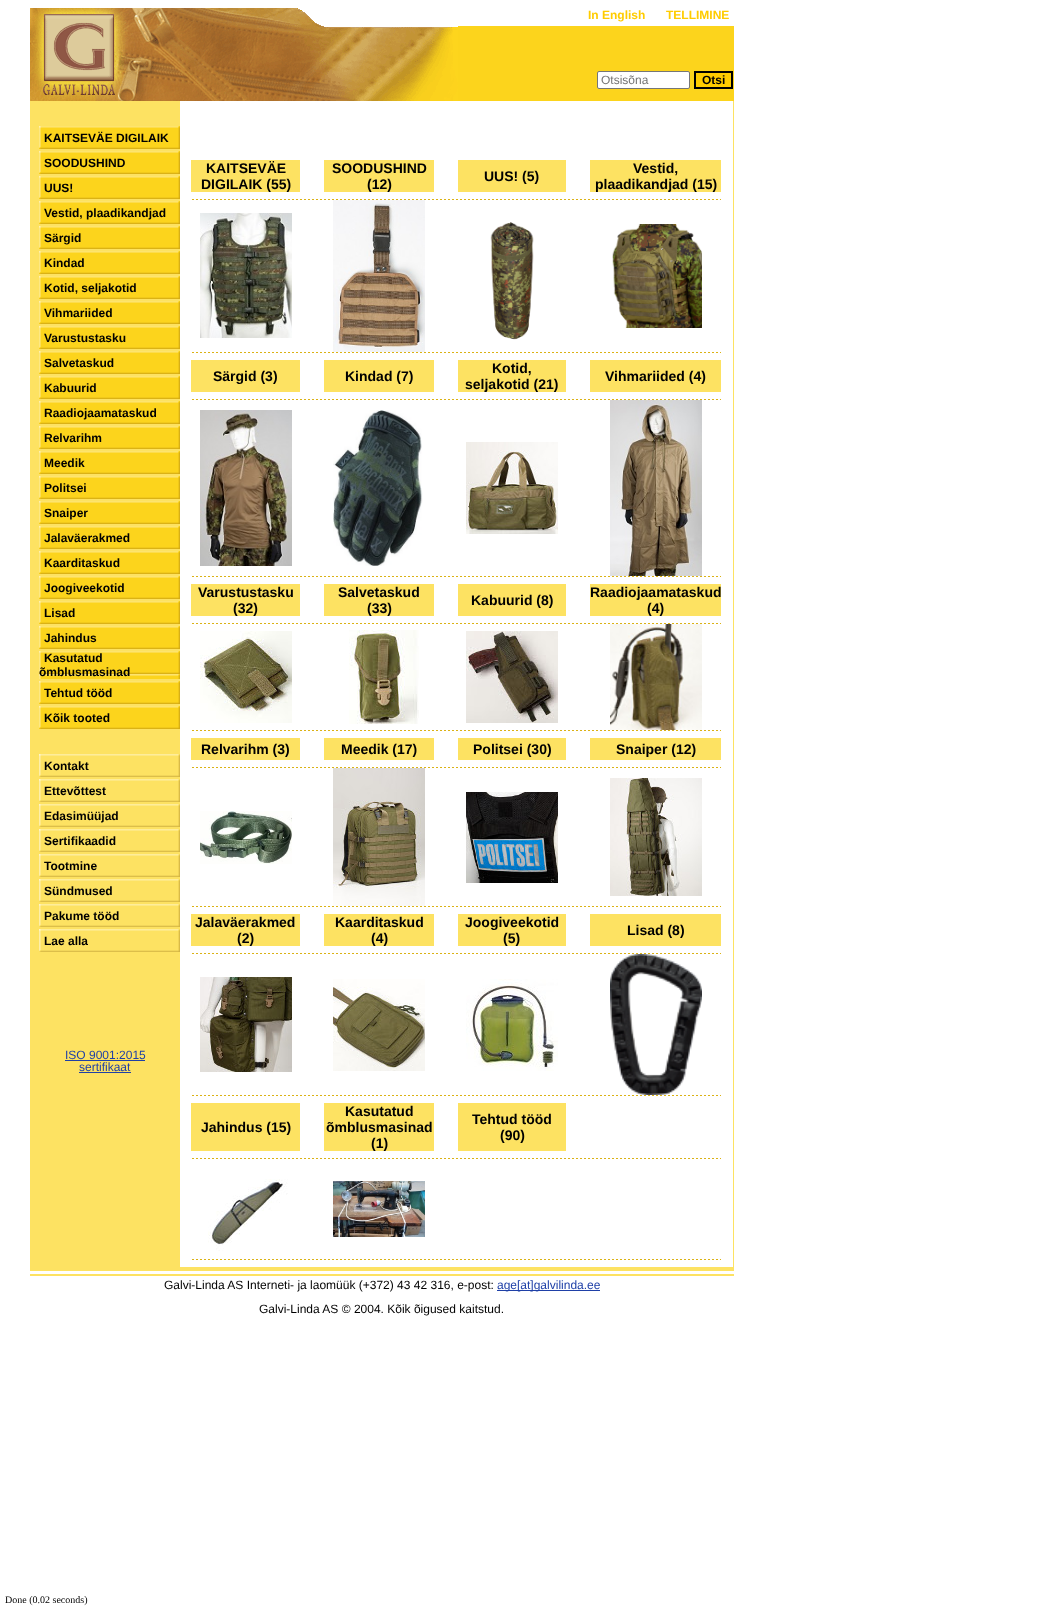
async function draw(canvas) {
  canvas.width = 1060;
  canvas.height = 1609;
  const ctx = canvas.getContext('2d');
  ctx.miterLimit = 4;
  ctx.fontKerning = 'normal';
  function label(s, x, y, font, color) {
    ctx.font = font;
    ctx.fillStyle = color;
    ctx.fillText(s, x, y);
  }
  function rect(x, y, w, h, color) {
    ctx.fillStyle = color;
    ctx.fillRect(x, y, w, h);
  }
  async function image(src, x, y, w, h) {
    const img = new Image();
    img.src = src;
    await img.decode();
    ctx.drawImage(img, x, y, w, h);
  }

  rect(0, 0, 1060, 1609, '#fff');
  await image('assets/img1.png', 30, 8, 150, 93);
  await image('assets/img2.png', 180, 8, 278, 93);
  label('In English', 588, 19, 'bold 12px Liberation Sans', '#fc0');
  label('TELLIMINE', 666, 19, 'bold 12px Liberation Sans', '#fc0');
  rect(458, 26, 276, 75, '#fcd41c');
  ctx.fillStyle = '#fff';
  ctx.beginPath();
  ctx.roundRect(597.5, 71.5, 92, 17, 1.5);
  ctx.fill();
  ctx.strokeStyle = '#767676';
  ctx.stroke();
  label('Otsisõna', 601, 84, '12px Liberation Sans', '#757575');
  ctx.fillStyle = '#fc0';
  ctx.beginPath();
  ctx.rect(695, 72, 37, 16);
  ctx.fill();
  ctx.strokeStyle = '#000';
  ctx.lineWidth = 2;
  ctx.stroke();
  label('Otsi', 702, 84, 'bold 12px Liberation Sans', '#000');
  rect(30, 101, 150, 1166, '#fde262');
  await image('assets/img3.png', 39, 126, 141, 23);
  label('KAITSEVÄE DIGILAIK', 44, 142, 'bold 12px Liberation Sans', '#000');
  await image('assets/img3.png', 39, 151, 141, 23);
  label('SOODUSHIND', 44, 167, 'bold 12px Liberation Sans', '#000');
  await image('assets/img3.png', 39, 176, 141, 23);
  label('UUS!', 44, 192, 'bold 12px Liberation Sans', '#000');
  await image('assets/img3.png', 39, 201, 141, 23);
  label('Vestid, plaadikandjad', 44, 217, 'bold 12px Liberation Sans', '#000');
  await image('assets/img3.png', 39, 226, 141, 23);
  label('Särgid', 44, 242, 'bold 12px Liberation Sans', '#000');
  await image('assets/img3.png', 39, 251, 141, 23);
  label('Kindad', 44, 267, 'bold 12px Liberation Sans', '#000');
  await image('assets/img3.png', 39, 276, 141, 23);
  label('Kotid, seljakotid', 44, 292, 'bold 12px Liberation Sans', '#000');
  await image('assets/img3.png', 39, 301, 141, 23);
  label('Vihmariided', 44, 317, 'bold 12px Liberation Sans', '#000');
  await image('assets/img3.png', 39, 326, 141, 23);
  label('Varustustasku', 44, 342, 'bold 12px Liberation Sans', '#000');
  await image('assets/img3.png', 39, 351, 141, 23);
  label('Salvetaskud', 44, 367, 'bold 12px Liberation Sans', '#000');
  await image('assets/img3.png', 39, 376, 141, 23);
  label('Kabuurid', 44, 392, 'bold 12px Liberation Sans', '#000');
  await image('assets/img3.png', 39, 401, 141, 23);
  label('Raadiojaamataskud', 44, 417, 'bold 12px Liberation Sans', '#000');
  await image('assets/img3.png', 39, 426, 141, 23);
  label('Relvarihm', 44, 442, 'bold 12px Liberation Sans', '#000');
  await image('assets/img3.png', 39, 451, 141, 23);
  label('Meedik', 44, 467, 'bold 12px Liberation Sans', '#000');
  await image('assets/img3.png', 39, 476, 141, 23);
  label('Politsei', 44, 492, 'bold 12px Liberation Sans', '#000');
  await image('assets/img3.png', 39, 501, 141, 23);
  label('Snaiper', 44, 517, 'bold 12px Liberation Sans', '#000');
  await image('assets/img3.png', 39, 526, 141, 23);
  label('Jalaväerakmed', 44, 542, 'bold 12px Liberation Sans', '#000');
  await image('assets/img3.png', 39, 551, 141, 23);
  label('Kaarditaskud', 44, 567, 'bold 12px Liberation Sans', '#000');
  await image('assets/img3.png', 39, 576, 141, 23);
  label('Joogiveekotid', 44, 592, 'bold 12px Liberation Sans', '#000');
  await image('assets/img3.png', 39, 601, 141, 23);
  label('Lisad', 44, 617, 'bold 12px Liberation Sans', '#000');
  await image('assets/img3.png', 39, 626, 141, 23);
  label('Jahindus', 44, 642, 'bold 12px Liberation Sans', '#000');
  await image('assets/img4.png', 39, 651, 141, 28);
  label('Kasutatud', 44, 662, 'bold 12px Liberation Sans', '#000');
  label('õmblusmasinad', 39, 676, 'bold 12px Liberation Sans', '#000');
  await image('assets/img3.png', 39, 681, 141, 23);
  label('Tehtud tööd', 44, 697, 'bold 12px Liberation Sans', '#000');
  await image('assets/img3.png', 39, 706, 141, 23);
  label('Kõik tooted', 44, 722, 'bold 12px Liberation Sans', '#000');
  await image('assets/img5.png', 39, 754, 141, 23);
  label('Kontakt', 44, 770, 'bold 12px Liberation Sans', '#000');
  await image('assets/img5.png', 39, 779, 141, 23);
  label('Ettevõttest', 44, 795, 'bold 12px Liberation Sans', '#000');
  await image('assets/img5.png', 39, 804, 141, 23);
  label('Edasimüüjad', 44, 820, 'bold 12px Liberation Sans', '#000');
  await image('assets/img5.png', 39, 829, 141, 23);
  label('Sertifikaadid', 44, 845, 'bold 12px Liberation Sans', '#000');
  await image('assets/img5.png', 39, 854, 141, 23);
  label('Tootmine', 44, 870, 'bold 12px Liberation Sans', '#000');
  await image('assets/img5.png', 39, 879, 141, 23);
  label('Sündmused', 44, 895, 'bold 12px Liberation Sans', '#000');
  await image('assets/img5.png', 39, 904, 141, 23);
  label('Pakume tööd', 44, 920, 'bold 12px Liberation Sans', '#000');
  await image('assets/img5.png', 39, 929, 141, 23);
  label('Lae alla', 44, 945, 'bold 12px Liberation Sans', '#000');
  label('ISO 9001:2015', 65, 1059, '12px Liberation Sans', '#1f40a7');
  rect(65, 1060, 80, 1, '#1f40a7');
  label('sertifikaat', 79, 1071, '12px Liberation Sans', '#1f40a7');
  rect(79, 1072, 52, 1, '#1f40a7');
  rect(191, 160, 109, 32, '#fde262');
  label('KAITSEVÄE', 206, 173, 'bold 14px Liberation Sans', '#000');
  label('DIGILAIK (55)', 201, 189, 'bold 14px Liberation Sans', '#000');
  rect(324, 160, 110, 32, '#fde262');
  label('SOODUSHIND', 332, 173, 'bold 14px Liberation Sans', '#000');
  label('(12)', 367, 189, 'bold 14px Liberation Sans', '#000');
  rect(458, 160, 108, 32, '#fde262');
  label('UUS! (5)', 484, 181, 'bold 14px Liberation Sans', '#000');
  rect(590, 160, 131, 32, '#fde262');
  label('Vestid,', 633, 173, 'bold 14px Liberation Sans', '#000');
  label('plaadikandjad (15)', 595, 189, 'bold 14px Liberation Sans', '#000');
  await image('assets/img6.png', 192, 199, 529, 1);
  await image('assets/img7.png', 200, 213, 92, 125);
  await image('assets/img8.png', 333, 200, 92, 152);
  await image('assets/img9.png', 490, 222, 44, 118);
  await image('assets/img10.png', 612, 224, 90, 104);
  await image('assets/img6.png', 192, 352, 529, 1);
  rect(191, 360, 109, 32, '#fde262');
  label('Särgid (3)', 213, 381, 'bold 14px Liberation Sans', '#000');
  rect(324, 360, 110, 32, '#fde262');
  label('Kindad (7)', 345, 381, 'bold 14px Liberation Sans', '#000');
  rect(458, 360, 108, 32, '#fde262');
  label('Kotid,', 492, 373, 'bold 14px Liberation Sans', '#000');
  label('seljakotid (21)', 465, 389, 'bold 14px Liberation Sans', '#000');
  rect(590, 360, 131, 32, '#fde262');
  label('Vihmariided (4)', 605, 381, 'bold 14px Liberation Sans', '#000');
  await image('assets/img6.png', 192, 399, 529, 1);
  await image('assets/img11.png', 200, 410, 92, 156);
  await image('assets/img12.png', 333, 410, 90, 156);
  await image('assets/img13.png', 466, 442, 92, 92);
  await image('assets/img14.png', 610, 400, 92, 176);
  await image('assets/img6.png', 192, 576, 529, 1);
  rect(191, 584, 109, 32, '#fde262');
  label('Varustustasku', 198, 597, 'bold 14px Liberation Sans', '#000');
  label('(32)', 233, 613, 'bold 14px Liberation Sans', '#000');
  rect(324, 584, 110, 32, '#fde262');
  label('Salvetaskud', 338, 597, 'bold 14px Liberation Sans', '#000');
  label('(33)', 367, 613, 'bold 14px Liberation Sans', '#000');
  rect(458, 584, 108, 32, '#fde262');
  label('Kabuurid (8)', 471, 605, 'bold 14px Liberation Sans', '#000');
  rect(590, 584, 131, 32, '#fde262');
  label('Raadiojaamataskud', 590, 597, 'bold 14px Liberation Sans', '#000');
  label('(4)', 647, 613, 'bold 14px Liberation Sans', '#000');
  await image('assets/img6.png', 192, 623, 529, 1);
  await image('assets/img15.png', 200, 631, 92, 92);
  await image('assets/img16.png', 349, 630, 70, 94);
  await image('assets/img17.png', 466, 631, 92, 92);
  await image('assets/img18.png', 610, 624, 92, 106);
  await image('assets/img6.png', 192, 730, 529, 1);
  rect(191, 738, 109, 22, '#fde262');
  label('Relvarihm (3)', 201, 754, 'bold 14px Liberation Sans', '#000');
  rect(324, 738, 110, 22, '#fde262');
  label('Meedik (17)', 341, 754, 'bold 14px Liberation Sans', '#000');
  rect(458, 738, 108, 22, '#fde262');
  label('Politsei (30)', 473, 754, 'bold 14px Liberation Sans', '#000');
  rect(590, 738, 131, 22, '#fde262');
  label('Snaiper (12)', 616, 754, 'bold 14px Liberation Sans', '#000');
  await image('assets/img6.png', 192, 767, 529, 1);
  await image('assets/img19.png', 200, 811, 92, 53);
  await image('assets/img20.png', 333, 768, 92, 138);
  await image('assets/img21.png', 466, 792, 92, 91);
  await image('assets/img22.png', 610, 778, 92, 118);
  await image('assets/img6.png', 192, 906, 529, 1);
  rect(191, 914, 109, 32, '#fde262');
  label('Jalaväerakmed', 195, 927, 'bold 14px Liberation Sans', '#000');
  label('(2)', 237, 943, 'bold 14px Liberation Sans', '#000');
  rect(324, 914, 110, 32, '#fde262');
  label('Kaarditaskud', 335, 927, 'bold 14px Liberation Sans', '#000');
  label('(4)', 371, 943, 'bold 14px Liberation Sans', '#000');
  rect(458, 914, 108, 32, '#fde262');
  label('Joogiveekotid', 465, 927, 'bold 14px Liberation Sans', '#000');
  label('(5)', 503, 943, 'bold 14px Liberation Sans', '#000');
  rect(590, 914, 131, 32, '#fde262');
  label('Lisad (8)', 627, 935, 'bold 14px Liberation Sans', '#000');
  await image('assets/img6.png', 192, 953, 529, 1);
  await image('assets/img23.png', 200, 977, 92, 95);
  await image('assets/img24.png', 333, 979, 92, 92);
  await image('assets/img25.png', 466, 979, 92, 92);
  await image('assets/img26.png', 610, 954, 92, 141);
  await image('assets/img6.png', 192, 1095, 529, 1);
  rect(191, 1103, 109, 48, '#fde262');
  label('Jahindus (15)', 201, 1132, 'bold 14px Liberation Sans', '#000');
  rect(324, 1103, 110, 48, '#fde262');
  label('Kasutatud', 345, 1116, 'bold 14px Liberation Sans', '#000');
  label('õmblusmasinad', 326, 1132, 'bold 14px Liberation Sans', '#000');
  label('(1)', 371, 1148, 'bold 14px Liberation Sans', '#000');
  rect(458, 1103, 108, 48, '#fde262');
  label('Tehtud tööd', 472, 1124, 'bold 14px Liberation Sans', '#000');
  label('(90)', 500, 1140, 'bold 14px Liberation Sans', '#000');
  await image('assets/img6.png', 192, 1158, 529, 1);
  await image('assets/img27.png', 208, 1179, 80, 72);
  await image('assets/img28.png', 333, 1181, 92, 56);
  await image('assets/img6.png', 192, 1259, 529, 1);
  rect(733, 101, 1, 1166, '#fde262');
  rect(30, 1267, 704, 4, '#fde262');
  rect(30, 1274, 704, 2, '#fde262');
  label('Galvi-Linda AS Interneti- ja laomüük (+372) 43 42 316, e-post:', 164, 1289, '12px Liberation Sans', '#000');
  rect(497, 1290, 103, 1, '#1f40a7');
  label('age[at]galvilinda.ee', 497, 1289, '12px Liberation Sans', '#1f40a7');
  label('Galvi-Linda AS © 2004. Kõik õigused kaitstud.', 259, 1313, '12px Liberation Sans', '#000');
  label('Done (0.02 seconds)', 5, 1603, '10px Liberation Serif', '#000');
}

draw(document.querySelector('canvas'));
